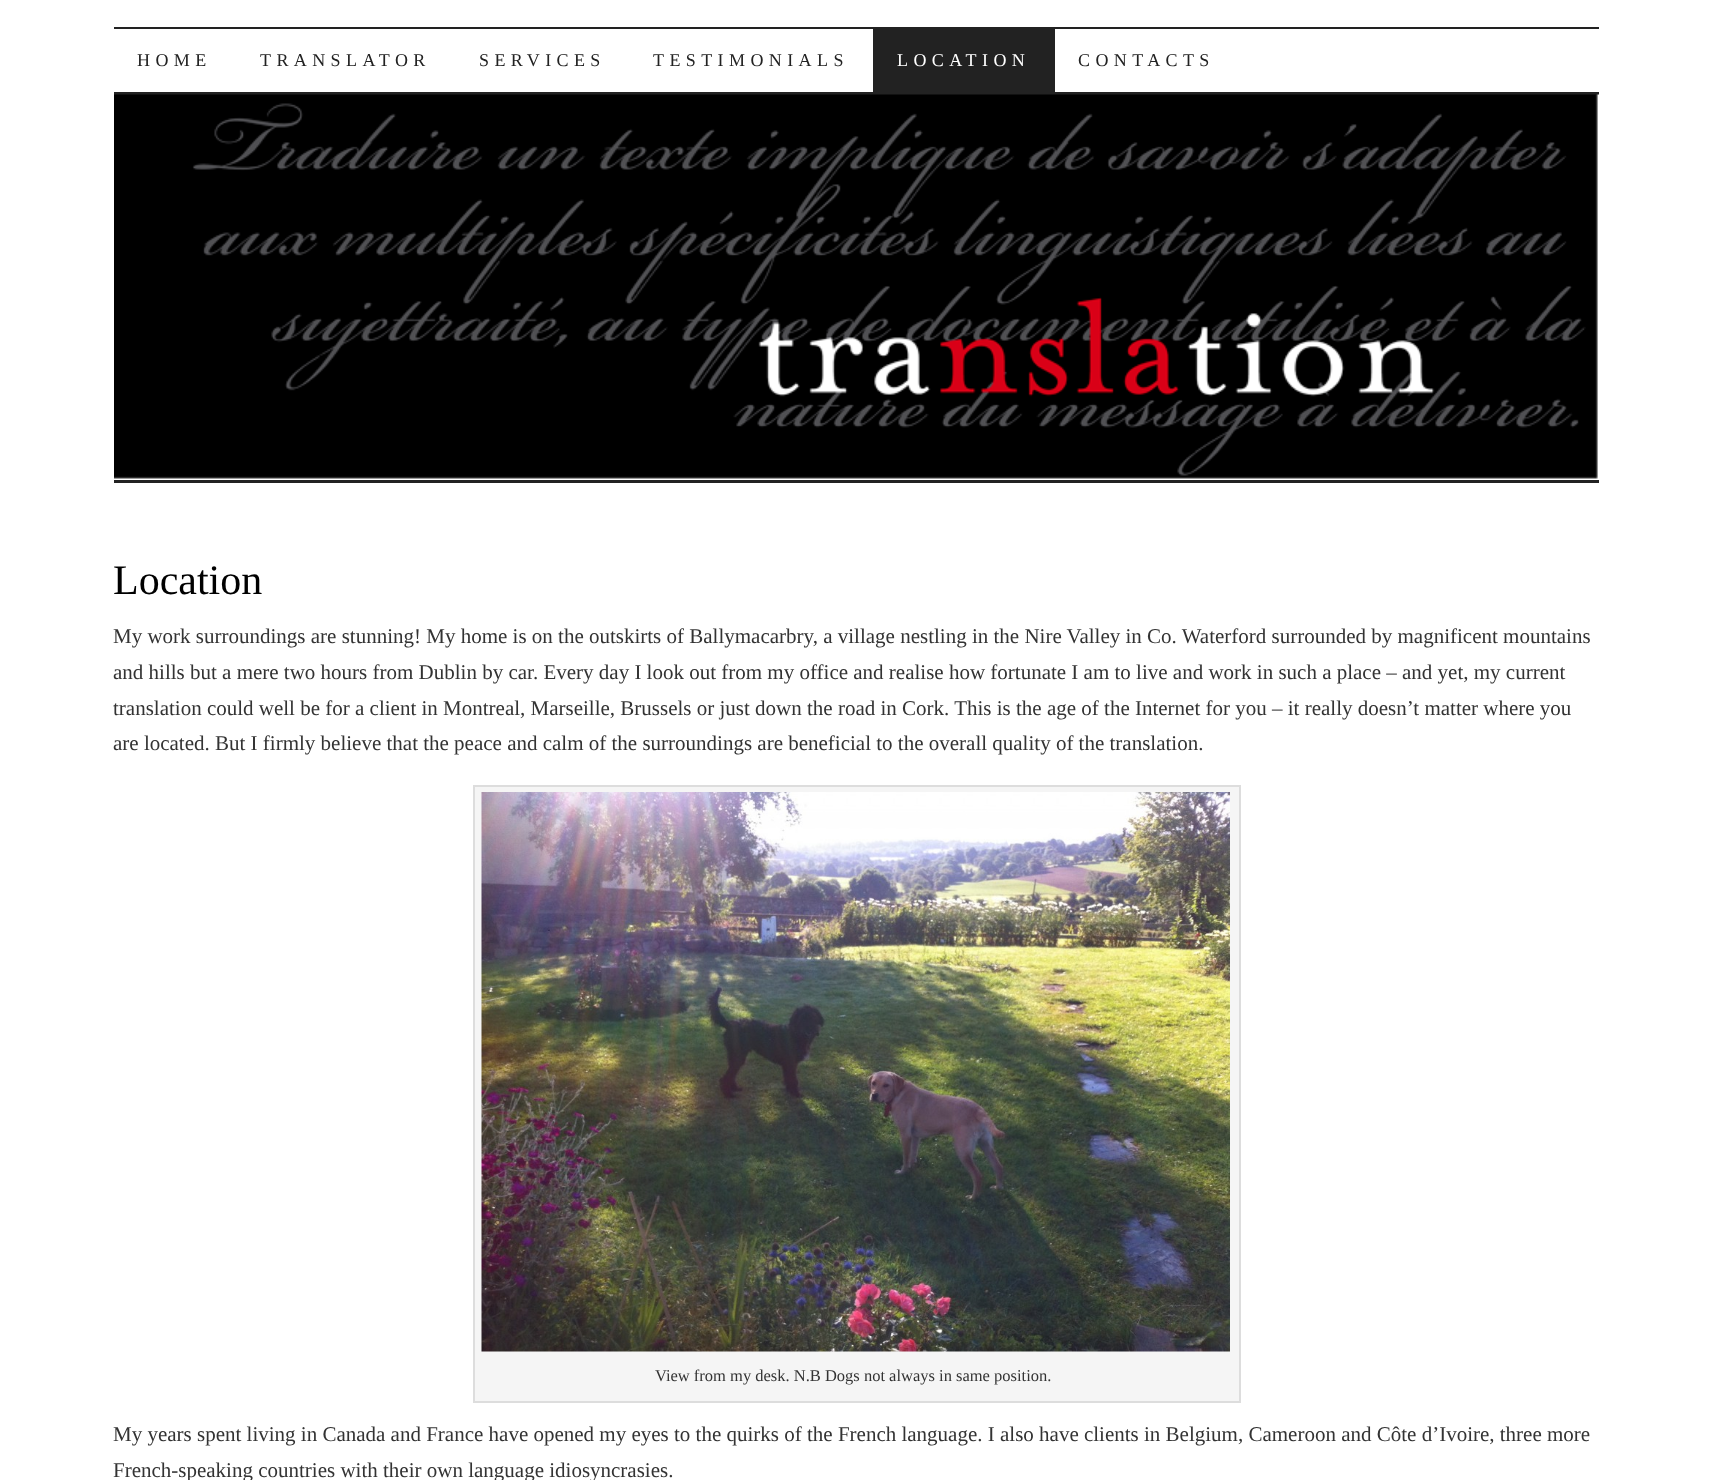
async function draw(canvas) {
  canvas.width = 1711;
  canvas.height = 1480;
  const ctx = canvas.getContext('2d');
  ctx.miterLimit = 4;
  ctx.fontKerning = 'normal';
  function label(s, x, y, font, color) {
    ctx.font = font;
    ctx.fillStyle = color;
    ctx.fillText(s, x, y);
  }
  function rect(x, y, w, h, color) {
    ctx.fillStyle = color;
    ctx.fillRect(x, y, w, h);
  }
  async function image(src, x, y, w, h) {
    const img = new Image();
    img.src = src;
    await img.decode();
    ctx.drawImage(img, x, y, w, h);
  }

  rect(0, 0, 1711, 1480, '#fff');
  rect(114, 27, 1485, 2, '#222');
  rect(114, 92, 1485, 3, '#222');
  ctx.letterSpacing = '5.4px';
  label('HOME', 137, 66, '18px Liberation Serif', '#222');
  label('TRANSLATOR', 260, 66, '18px Liberation Serif', '#222');
  label('SERVICES', 479, 66, '18px Liberation Serif', '#222');
  label('TESTIMONIALS', 653, 66, '18px Liberation Serif', '#222');
  rect(873, 29, 182, 63, '#222');
  label('LOCATION', 897, 66, '18px Liberation Serif', '#fff');
  label('CONTACTS', 1078, 66, '18px Liberation Serif', '#222');
  await image('assets/img1.png', 114, 94, 1485, 385);
  rect(114, 480, 1485, 3, '#222');
  ctx.letterSpacing = '0px';
  label('Location', 113, 594, '42px Liberation Serif', '#000');
  label('My work surroundings are stunning! My home is on the outskirts of Ballymacarbry, a village nestling in the Nire Valley in Co. Waterford surrounded by magnificent mountains', 113, 643, '21px Liberation Serif', '#333');
  label('and hills but a mere two hours from Dublin by car. Every day I look out from my office and realise how fortunate I am to live and work in such a place – and yet, my current', 113, 679, '21px Liberation Serif', '#333');
  label('translation could well be for a client in Montreal, Marseille, Brussels or just down the road in Cork. This is the age of the Internet for you – it really doesn’t matter where you', 113, 715, '21px Liberation Serif', '#333');
  label('are located. But I firmly believe that the peace and calm of the surroundings are beneficial to the overall quality of the translation.', 113, 750, '21px Liberation Serif', '#333');
  ctx.fillStyle = '#f5f5f5';
  ctx.beginPath();
  ctx.rect(474, 786, 766, 616);
  ctx.fill();
  ctx.strokeStyle = '#ddd';
  ctx.lineWidth = 2;
  ctx.stroke();
  await image('assets/img2.png', 481, 792, 749, 560);
  label('View from my desk. N.B Dogs not always in same position.', 655, 1381, '16.5px Liberation Serif', '#333');
  label('My years spent living in Canada and France have opened my eyes to the quirks of the French language. I also have clients in Belgium, Cameroon and Côte d’Ivoire, three more', 113, 1441, '21px Liberation Serif', '#333');
  label('French-speaking countries with their own language idiosyncrasies.', 113, 1477, '21px Liberation Serif', '#333');
}

draw(document.querySelector('canvas'));
